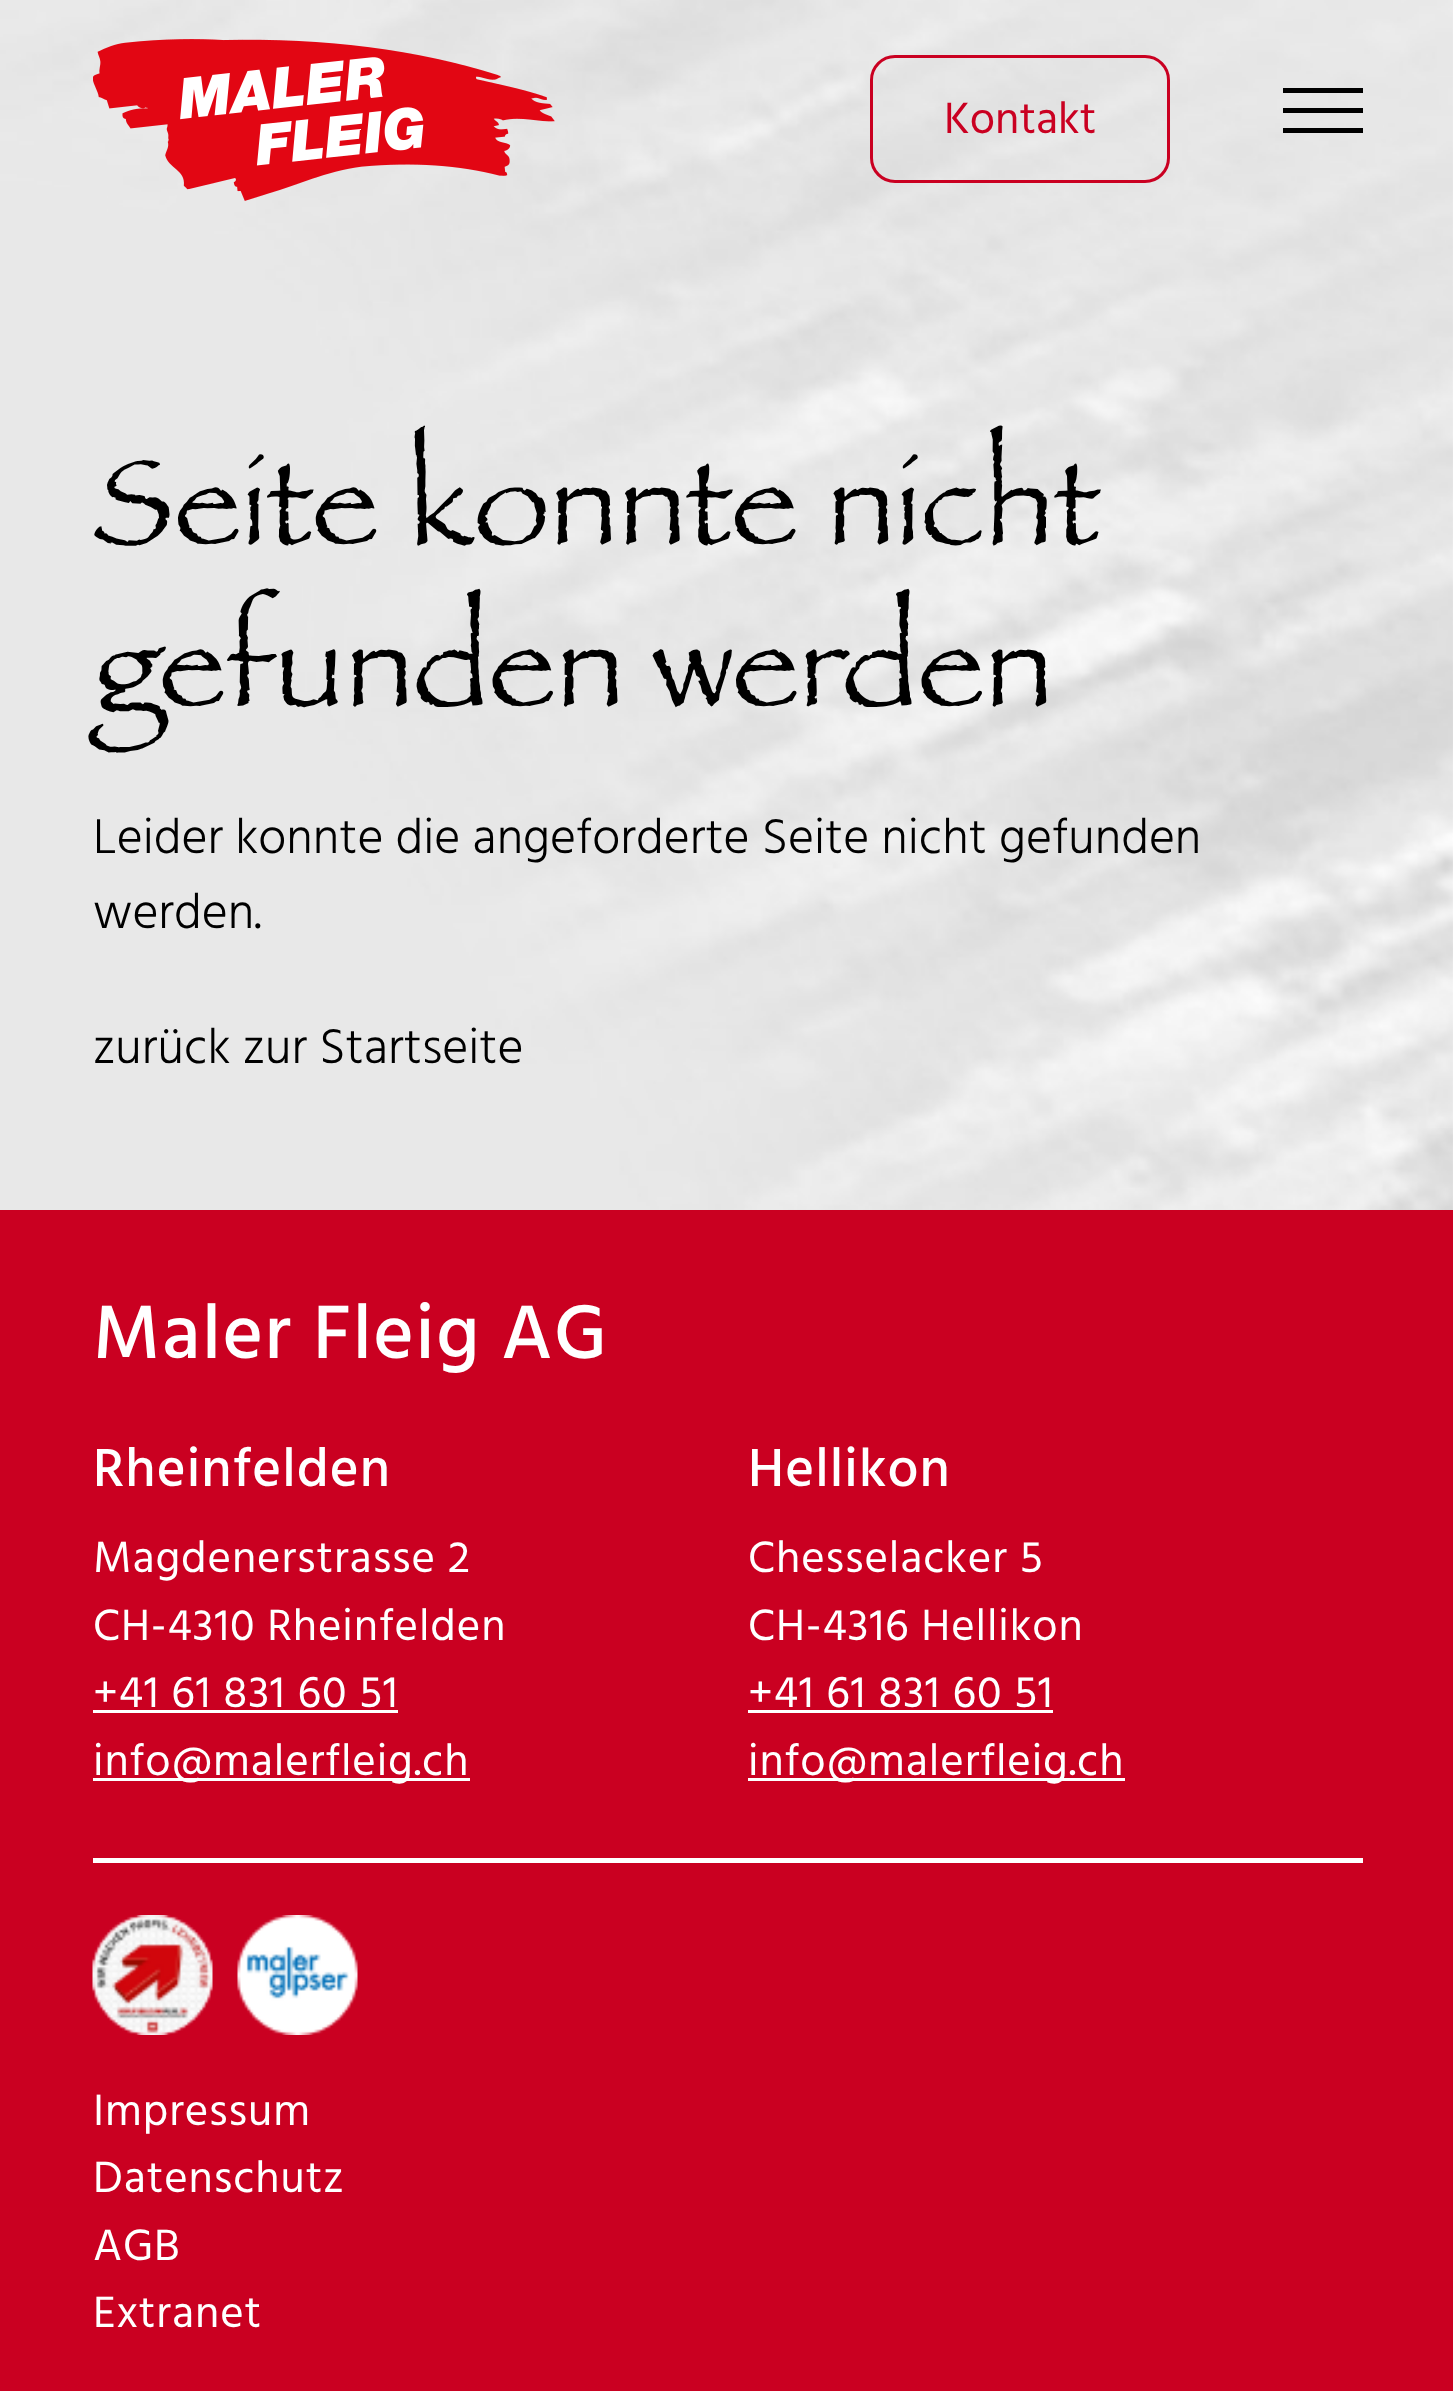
async function draw(canvas) {
  canvas.width = 1453;
  canvas.height = 2391;
  const ctx = canvas.getContext('2d');
  ctx.miterLimit = 4;
  ctx.fontKerning = 'normal';
  function label(s, x, y, font, color) {
    ctx.font = font;
    ctx.fillStyle = color;
    ctx.fillText(s, x, y);
  }
  function rect(x, y, w, h, color) {
    ctx.fillStyle = color;
    ctx.fillRect(x, y, w, h);
  }
  async function image(src, x, y, w, h) {
    const img = new Image();
    img.src = src;
    await img.decode();
    ctx.drawImage(img, x, y, w, h);
  }

  rect(0, 0, 1453, 2391, '#fff');
  await image('assets/img1.png', 0, 0, 1453, 1210);
  await image('assets/img2.png', 93, 39, 462, 162);
  ctx.beginPath();
  ctx.roundRect(871.5, 56.5, 297, 125, 23.5);
  ctx.strokeStyle = '#ca0021';
  ctx.lineWidth = 3;
  ctx.stroke();
  label('Kontakt', 944, 133, '45px Hind Madurai', '#ca0021');
  rect(1283, 88, 80, 5, '#000');
  rect(1283, 108, 80, 5, '#000');
  rect(1283, 128, 80, 5, '#000');
  label('Seite konnte nicht', 93, 543, '125px "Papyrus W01"', '#000');
  label('gefunden werden', 93, 705, '125px "Papyrus W01"', '#000');
  label('Leider konnte die angeforderte Seite nicht gefunden', 93, 853, '300 50px Hind Madurai', '#000');
  label('werden.', 93, 928, '300 50px Hind Madurai', '#000');
  label('zurück zur Startseite', 93, 1063, '300 50px Hind Madurai', '#000');
  rect(0, 1210, 1453, 1181, '#ca0021');
  ctx.letterSpacing = '1.5px';
  label('Maler Fleig AG', 93, 1358, '500 77.5px Hind Madurai', '#fff');
  ctx.letterSpacing = '1.1px';
  label('Rheinfelden', 93, 1486, '500 55px Hind Madurai', '#fff');
  ctx.letterSpacing = '0.9px';
  label('Magdenerstrasse 2', 93, 1572, '45px Hind Madurai', '#fff');
  label('CH-4310 Rheinfelden', 93, 1640, '45px Hind Madurai', '#fff');
  label('+41 61 831 60 51', 93, 1707, '45px Hind Madurai', '#fff');
  rect(93, 1710, 305, 3, '#fff');
  rect(93, 1778, 377, 3, '#fff');
  label('info@malerfleig.ch', 93, 1775, '45px Hind Madurai', '#fff');
  ctx.letterSpacing = '1.1px';
  label('Hellikon', 748, 1486, '500 55px Hind Madurai', '#fff');
  ctx.letterSpacing = '0.9px';
  label('Chesselacker 5', 748, 1572, '45px Hind Madurai', '#fff');
  label('CH-4316 Hellikon', 748, 1640, '45px Hind Madurai', '#fff');
  label('+41 61 831 60 51', 748, 1707, '45px Hind Madurai', '#fff');
  rect(748, 1710, 305, 3, '#fff');
  rect(748, 1778, 377, 3, '#fff');
  label('info@malerfleig.ch', 748, 1775, '45px Hind Madurai', '#fff');
  rect(93, 1858, 1270, 5, '#fff');
  await image('assets/img3.png', 92, 1915, 121, 120);
  await image('assets/img4.png', 237, 1915, 121, 120);
  label('Impressum', 93, 2125, '45px Hind Madurai', '#fff');
  label('Datenschutz', 93, 2192, '45px Hind Madurai', '#fff');
  label('AGB', 93, 2260, '45px Hind Madurai', '#fff');
  label('Extranet', 93, 2327, '45px Hind Madurai', '#fff');
}

draw(document.querySelector('canvas'));
